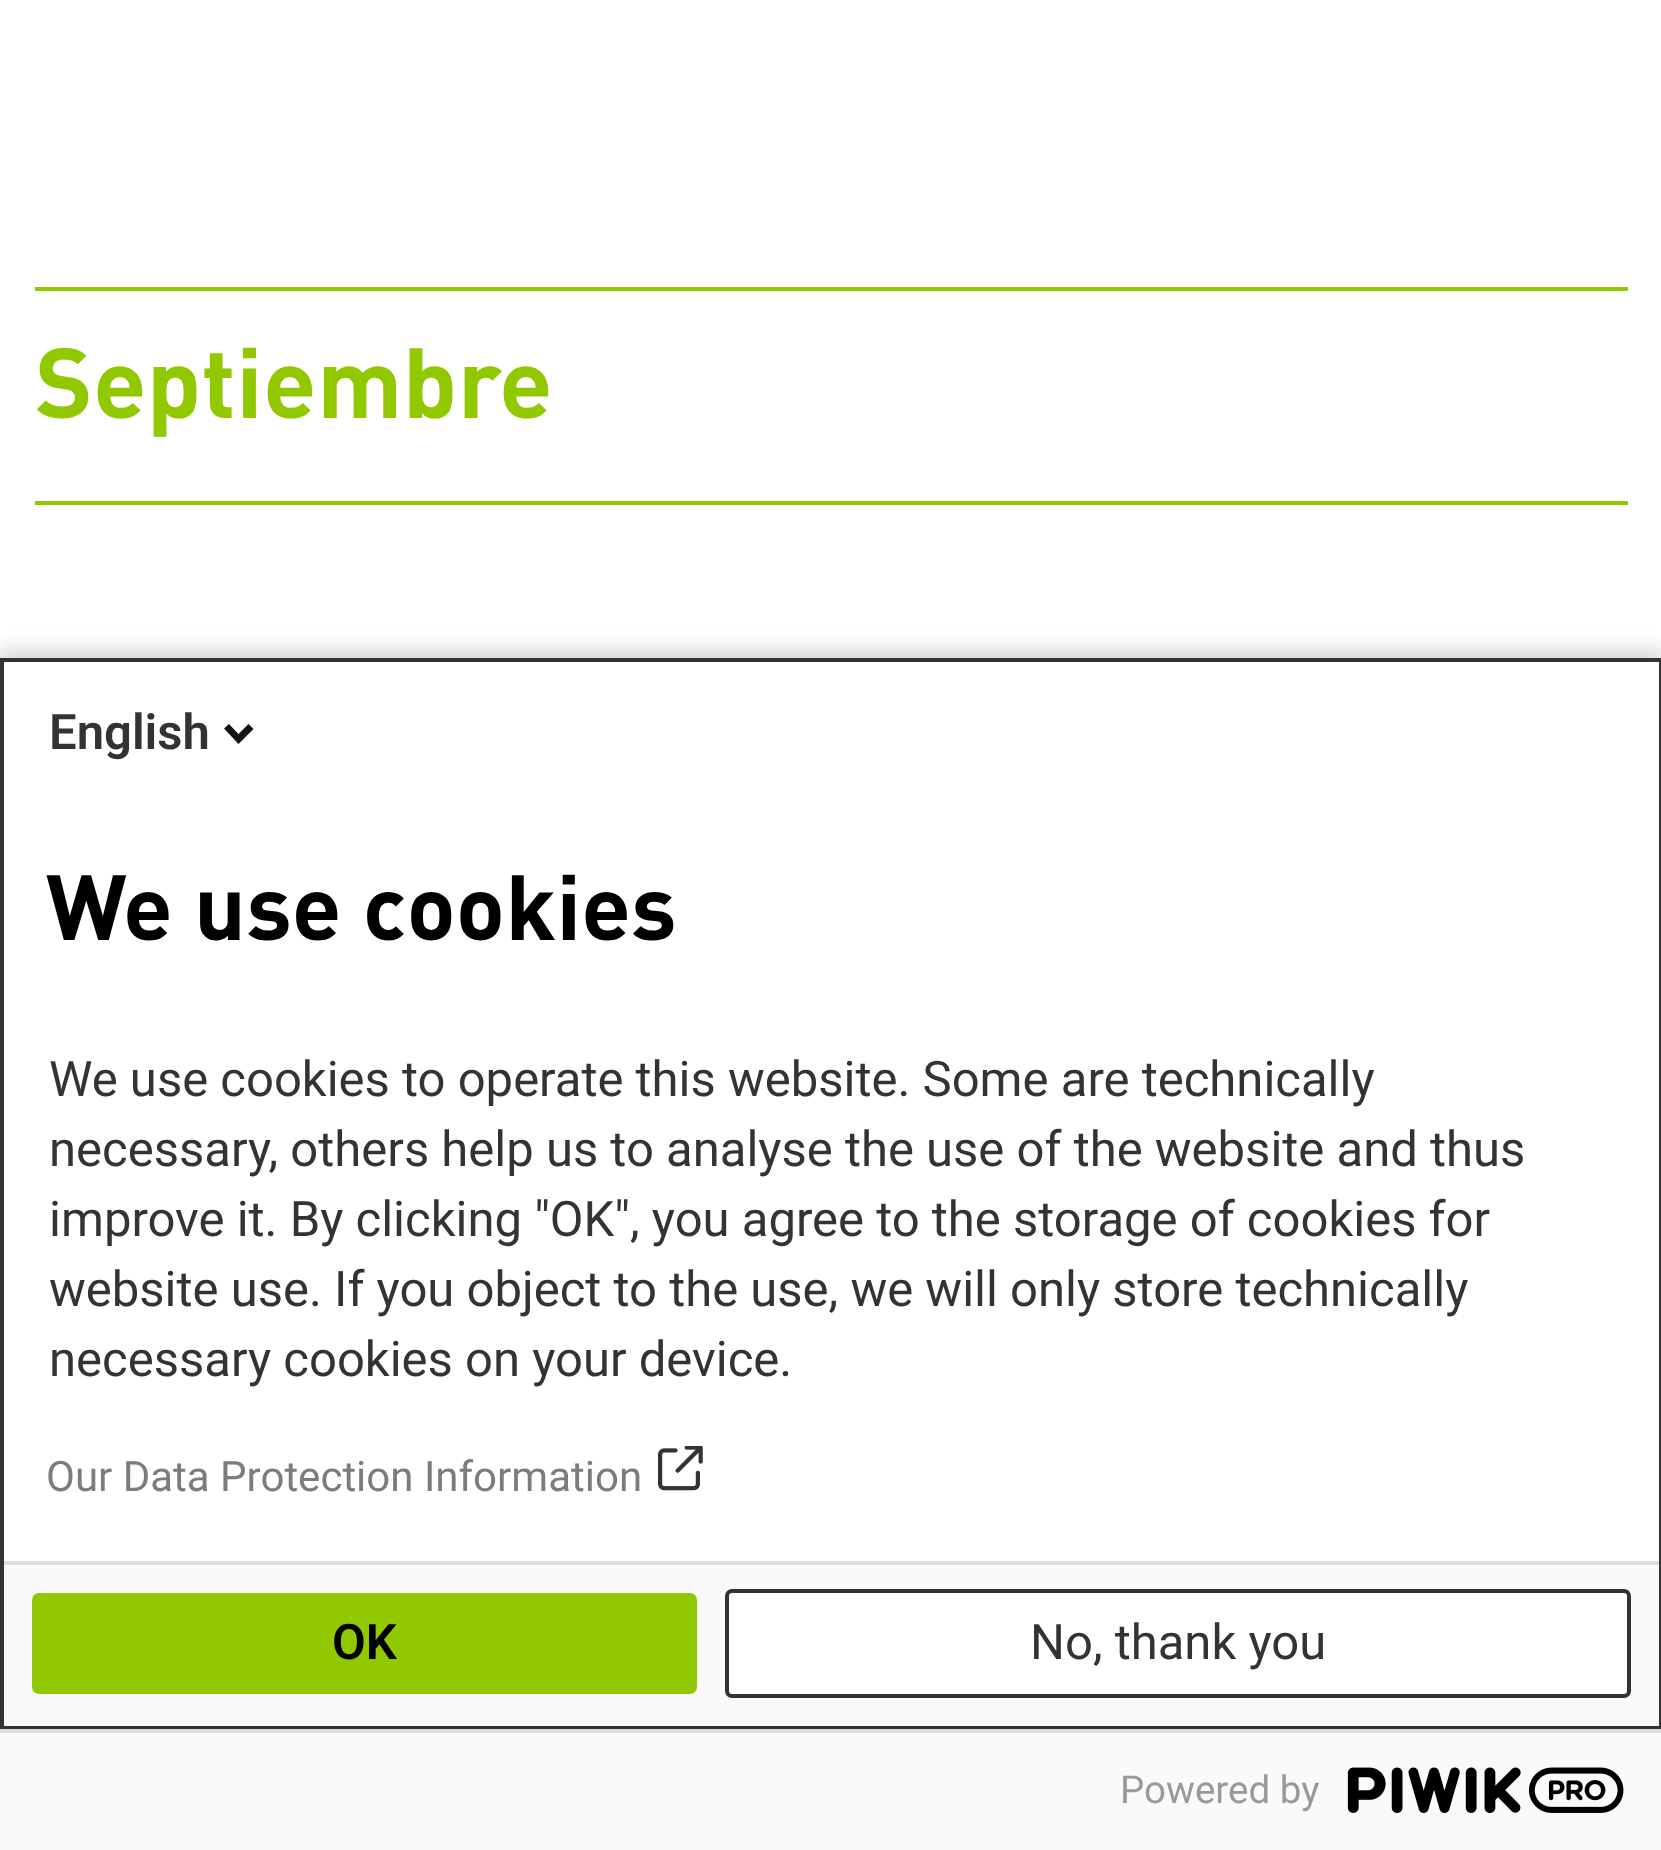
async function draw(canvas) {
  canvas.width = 1661;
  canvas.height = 1850;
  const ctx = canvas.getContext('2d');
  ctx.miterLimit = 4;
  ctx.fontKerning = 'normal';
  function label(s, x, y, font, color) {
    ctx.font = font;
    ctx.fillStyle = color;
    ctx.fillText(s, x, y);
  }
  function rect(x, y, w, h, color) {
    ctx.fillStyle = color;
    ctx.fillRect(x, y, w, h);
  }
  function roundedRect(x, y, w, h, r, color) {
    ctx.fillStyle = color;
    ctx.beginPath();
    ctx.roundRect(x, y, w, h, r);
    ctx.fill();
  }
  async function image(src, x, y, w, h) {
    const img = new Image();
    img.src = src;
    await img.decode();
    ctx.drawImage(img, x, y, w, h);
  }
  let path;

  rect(0, 0, 1661, 1850, '#fff');
  rect(35, 287, 1593, 4, '#91c800');
  rect(35, 501, 1593, 4, '#91c800');
  label('Septiembre', 35, 418, 'bold 98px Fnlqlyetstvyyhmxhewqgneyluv', '#91c800');
  ctx.fillStyle = '#00000024';
  ctx.filter = 'blur(9px)';
  ctx.beginPath();
  ctx.rect(-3, 648, 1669, 1200);
  ctx.fill();
  ctx.filter = 'none';
  rect(4, 662, 1655, 899, '#fff');
  ctx.strokeStyle = '#333';
  ctx.lineWidth = 4;
  ctx.strokeRect(2, 660, 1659, 1067);
  label('English', 49, 749, '600 49px Roboto', '#333');
  ctx.fillStyle = '#131313';
  path = new Path2D('M238.5 734L248.5 724L253.5 729L238.5 744L224 728.5L229 724Z');
  ctx.fill(path);
  label('We use cookies', 46, 940, 'bold 91px Fnlqlyetstvyyhmxhewqgneyluv', '#000');
  label('We use cookies to operate this website. Some are technically', 49, 1096, '49px Roboto', '#333');
  label('necessary, others help us to analyse the use of the website and thus', 49, 1166, '49px Roboto', '#333');
  label('improve it. By clicking "OK", you agree to the storage of cookies for', 49, 1236, '49px Roboto', '#333');
  label('website use. If you object to the use, we will only store technically', 49, 1306, '49px Roboto', '#333');
  label('necessary cookies on your device.', 49, 1376, '49px Roboto', '#333');
  label('Our Data Protection Information', 46, 1491, '42px Roboto', '#7c7c7c');
  await image('assets/img1.png', 658, 1446, 45, 45);
  rect(4, 1565, 1655, 161, '#fafafa');
  rect(4, 1561, 1655, 4, '#ddd');
  roundedRect(32, 1593, 665, 101, 7, '#91c800');
  label('OK', 332, 1659, '600 49px Roboto', '#000');
  ctx.fillStyle = '#fff';
  ctx.beginPath();
  ctx.roundRect(727, 1591, 902, 105, 5);
  ctx.fill();
  ctx.stroke();
  label('No, thank you', 1030, 1659, '49px Roboto', '#333');
  rect(0, 1733, 1661, 117, '#fafafa');
  rect(0, 1729, 1661, 4, '#ddd');
  label('Powered by', 1120, 1803, '38.5px Roboto', '#999');
  await image('assets/img2.png', 1347, 1767, 277, 46);
}

draw(document.querySelector('canvas'));
